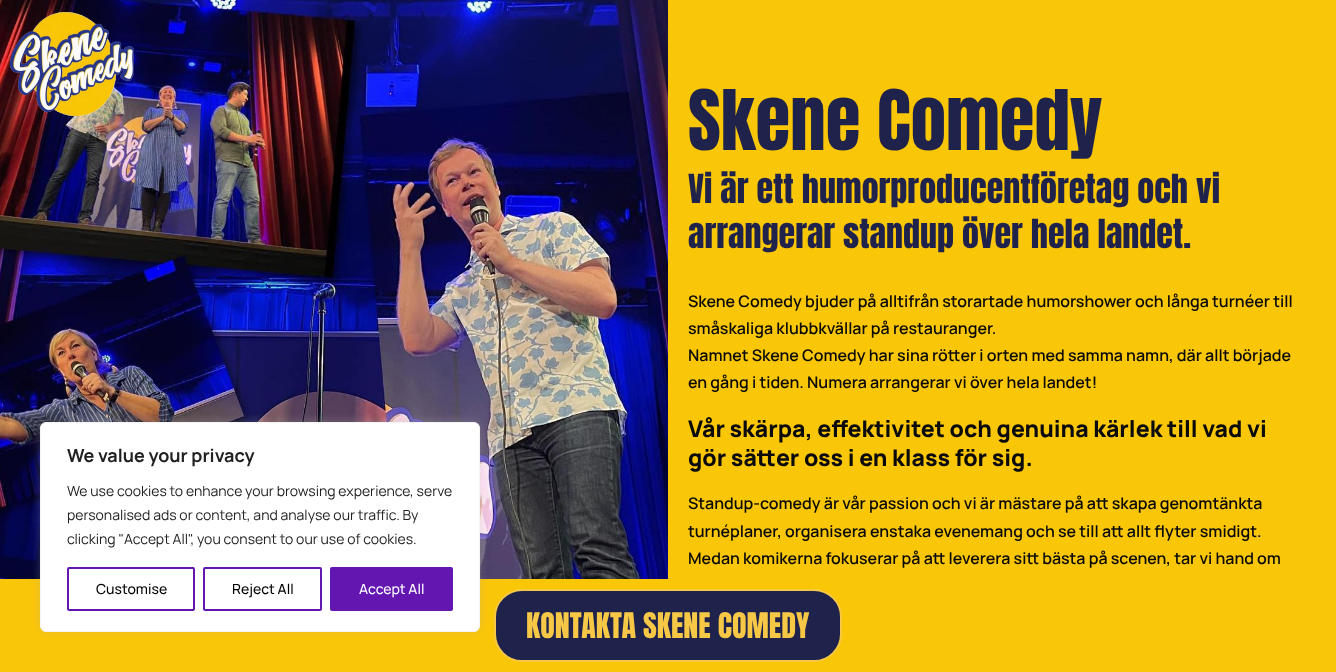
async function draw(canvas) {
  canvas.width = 1336;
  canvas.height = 672;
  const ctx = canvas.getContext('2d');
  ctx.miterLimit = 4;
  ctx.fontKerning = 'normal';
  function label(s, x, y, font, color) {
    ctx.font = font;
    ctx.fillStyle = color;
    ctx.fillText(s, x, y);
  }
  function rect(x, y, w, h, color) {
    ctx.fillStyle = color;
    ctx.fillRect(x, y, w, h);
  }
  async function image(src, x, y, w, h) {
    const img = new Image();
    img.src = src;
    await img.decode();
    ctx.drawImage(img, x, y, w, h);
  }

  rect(0, 0, 1336, 672, '#fff');
  await image('assets/img2.png', 0, 0, 668, 579);
  rect(0, 579, 1336, 93, '#fac608');
  ctx.fillStyle = '#1f224b';
  ctx.beginPath();
  ctx.roundRect(495, 590, 346, 71, 27);
  ctx.fill();
  ctx.strokeStyle = '#f7c846';
  ctx.lineWidth = 2;
  ctx.stroke();
  ctx.fillStyle = '#acabab4d';
  ctx.filter = 'blur(5px)';
  ctx.beginPath();
  ctx.roundRect(40, 421, 440, 210, 6);
  ctx.fill();
  ctx.filter = 'none';
  ctx.fillStyle = '#fff';
  ctx.beginPath();
  ctx.roundRect(40.5, 422.5, 439, 209, 5.5);
  ctx.fill();
  ctx.strokeStyle = '#f4f4f4';
  ctx.lineWidth = 1;
  ctx.stroke();
  label('We value your privacy', 67, 462, 'bold 18px Manrope', '#212121');
  label('We use cookies to enhance your browsing experience, serve', 67, 496, '14px Manrope', '#212121');
  label('personalised ads or content, and analyse our traffic. By', 67, 520, '14px Manrope', '#212121');
  label('clicking "Accept All", you consent to our use of cookies.', 67, 544, '14px Manrope', '#212121');
  ctx.beginPath();
  ctx.roundRect(68, 568, 126, 42, 1);
  ctx.strokeStyle = '#6417b0';
  ctx.lineWidth = 2;
  ctx.stroke();
  label('Customise', 96, 594, '500 14px Manrope', '#000');
  ctx.beginPath();
  ctx.roundRect(204, 568, 117, 42, 1);
  ctx.stroke();
  label('Reject All', 232, 594, '500 14px Manrope', '#000');
  ctx.fillStyle = '#6417b0';
  ctx.beginPath();
  ctx.roundRect(331, 568, 121, 42, 1);
  ctx.fill();
  ctx.stroke();
  label('Accept All', 359, 594, '500 14px Manrope', '#fff');
  await image('assets/img1.png', 9, 12, 125, 104);
  rect(668, 0, 668, 579, '#fac608');
  label('Skene Comedy', 688, 150, '71px Anton', '#1f224b');
  label('Vi är ett humorproducentföretag och vi', 688, 203, '34px Anton', '#1f224b');
  label('arrangerar standup över hela landet.', 688, 248, '34px Anton', '#1f224b');
  label('Skene Comedy bjuder på alltifrån storartade humorshower och långa turnéer till', 688, 307, '600 16px Manrope', '#0a0a0a');
  label('småskaliga klubbkvällar på restauranger.', 688, 334, '600 16px Manrope', '#0a0a0a');
  label('Namnet Skene Comedy har sina rötter i orten med samma namn, där allt började', 688, 361, '600 16px Manrope', '#0a0a0a');
  label('en gång i tiden. Numera arrangerar vi över hela landet!', 688, 388, '600 16px Manrope', '#0a0a0a');
  label('Vår skärpa, effektivitet och genuina kärlek till vad vi', 688, 437, '800 23px Manrope', '#0a0a0a');
  label('gör sätter oss i en klass för sig.', 688, 466, '800 23px Manrope', '#0a0a0a');
  label('Standup-comedy är vår passion och vi är mästare på att skapa genomtänkta', 688, 509, '600 16px Manrope', '#0a0a0a');
  label('turnéplaner, organisera enstaka evenemang och se till att allt flyter smidigt.', 688, 537, '600 16px Manrope', '#0a0a0a');
  label('Medan komikerna fokuserar på att leverera sitt bästa på scenen, tar vi hand om', 688, 564, '600 16px Manrope', '#0a0a0a');
  label('KONTAKTA SKENE COMEDY', 526, 638, '30px Anton', '#f7c846');
}

draw(document.querySelector('canvas'));
